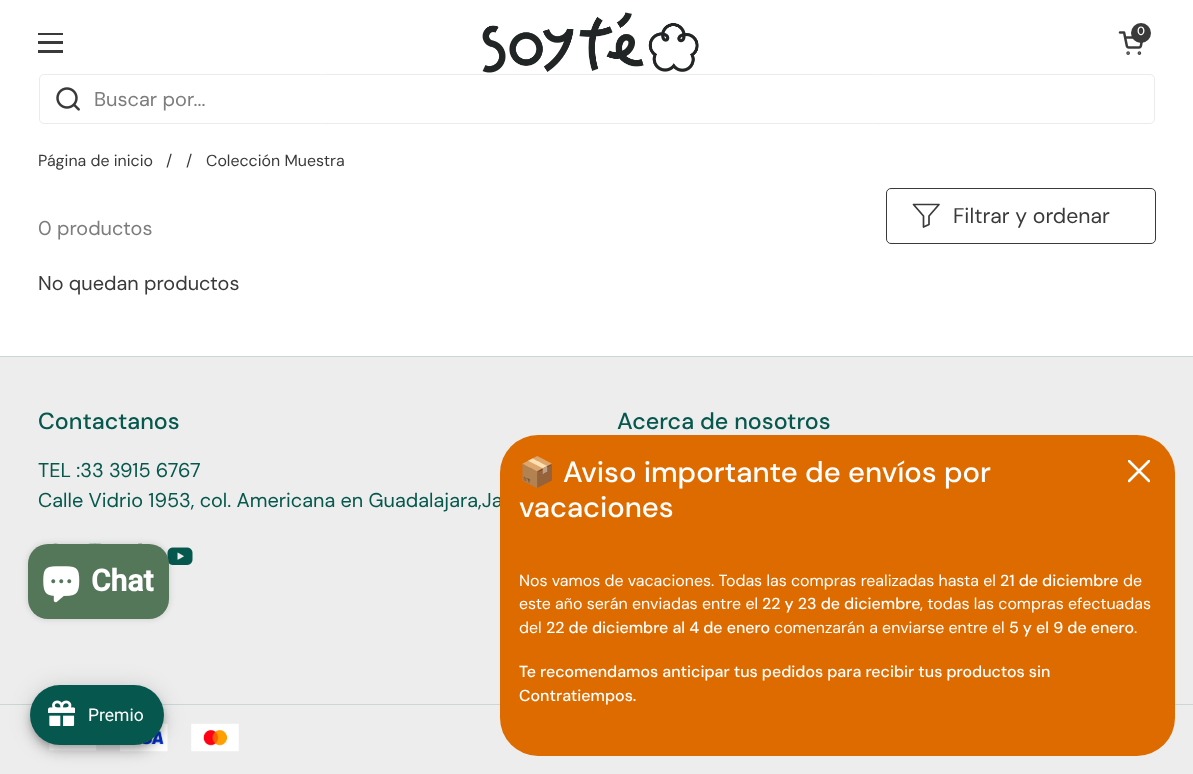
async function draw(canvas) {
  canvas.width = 1193;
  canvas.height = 774;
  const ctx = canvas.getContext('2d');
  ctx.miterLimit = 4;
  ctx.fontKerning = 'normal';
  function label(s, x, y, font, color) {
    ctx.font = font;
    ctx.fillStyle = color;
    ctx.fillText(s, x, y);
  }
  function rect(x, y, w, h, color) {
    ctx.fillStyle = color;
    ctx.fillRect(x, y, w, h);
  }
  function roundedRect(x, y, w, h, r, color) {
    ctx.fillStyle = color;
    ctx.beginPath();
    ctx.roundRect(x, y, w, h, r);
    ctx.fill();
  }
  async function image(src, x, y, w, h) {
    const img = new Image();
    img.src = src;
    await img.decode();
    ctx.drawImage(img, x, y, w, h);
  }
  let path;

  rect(0, 0, 1193, 774, '#fff');
  await image('assets/img1.png', 482, 12, 217, 61);
  await image('assets/img2.png', 1118, 31, 25, 24);
  ctx.fillStyle = '#3a3a3a';
  ctx.beginPath();
  ctx.arc(1141, 33, 10, 0, 2 * Math.PI);
  ctx.fill();
  label('0', 1137, 35, '500 12px "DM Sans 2"', '#fff');
  rect(38, 33, 25, 2, '#3a3a3a');
  rect(38, 41, 25, 3, '#3a3a3a');
  rect(38, 50, 25, 3, '#3a3a3a');
  ctx.beginPath();
  ctx.roundRect(39.5, 74.5, 1115, 49, 4.5);
  ctx.strokeStyle = '#ebebeb';
  ctx.stroke();
  await image('assets/img3.png', 56, 87, 24, 24);
  label('Buscar por...', 94, 106, '20px "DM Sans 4"', '#7d7d7d');
  label('Página de inicio', 38, 166, '15.95px "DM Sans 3"', '#3a3a3a');
  label('/', 166, 166, '15.95px "DM Sans 3"', '#3a3a3a');
  label('/', 186, 166, '15.95px "DM Sans 3"', '#3a3a3a');
  label('Colección Muestra', 206, 166, '15.95px "DM Sans 3"', '#3a3a3a');
  ctx.beginPath();
  ctx.roundRect(886.5, 188.5, 269, 55, 4.5);
  ctx.strokeStyle = '#3a3a3a';
  ctx.stroke();
  path = new Path2D('M913.5 204.5H939L929 216V224.5L923.5 227V216Z');
  ctx.lineWidth = 1.7;
  ctx.lineCap = 'round';
  ctx.lineJoin = 'round';
  ctx.stroke(path);
  label('Filtrar y ordenar', 953, 223, '21.25px "DM Sans 2"', '#3a3a3a');
  label('0 productos', 38, 235, '19.9px DM Sans', '#7d7d7d');
  label('No quedan productos', 38, 290, '19.9px DM Sans', '#3a3a3a');
  rect(0, 357, 1193, 417, '#ededed');
  rect(0, 356, 1193, 1, '#cad7d5');
  label('Contactanos', 38, 429, '500 23.25px DM Sans', '#06584e');
  label('TEL :33 3915 6767', 38, 477, '19.9px DM Sans', '#06584e');
  label('Calle Vidrio 1953, col. Americana en Guadalajara,Ja', 38, 507, '19.9px DM Sans', '#06584e');
  await image('assets/img4.png', 53, 543, 5, 1);
  await image('assets/img5.png', 88, 543, 14, 1);
  await image('assets/img6.png', 138, 543, 4, 1);
  await image('assets/img7.png', 167, 547, 26, 18);
  label('Acerca de nosotros', 617, 429, '500 23.25px DM Sans', '#06584e');
  rect(0, 704, 1193, 1, '#cad7d5');
  await image('assets/img8.png', 49, 742, 48, 9);
  await image('assets/img9.png', 120, 723, 48, 29);
  await image('assets/img10.png', 191, 723, 48, 29);
  roundedRect(500, 435, 675, 321, 38, '#de6b00');
  label('📦', 519, 482, '29.2px Noto Color Emoji', '#fff');
  label('Aviso importante de envíos por', 563, 482, '500 29.2px "DM Sans 3"', '#fff');
  label('vacaciones', 519, 517, '500 29.2px "DM Sans 3"', '#fff');
  label('Nos vamos de vacaciones. Todas las compras realizadas hasta el', 519, 586, '15.95px "DM Sans 3"', '#fff');
  label('21 de diciembre', 1000, 586, '500 15.95px "DM Sans 4"', '#fff');
  label('de', 1123, 586, '15.95px "DM Sans 3"', '#fff');
  label('este año serán enviadas entre el', 519, 609, '15.95px "DM Sans 3"', '#fff');
  label('22 y 23 de diciembre', 762, 609, '500 15.95px "DM Sans 4"', '#fff');
  label(', todas las compras efectuadas', 920, 609, '15.95px "DM Sans 3"', '#fff');
  label('del', 519, 633, '15.95px "DM Sans 3"', '#fff');
  label('22 de diciembre al 4 de enero', 546, 633, '500 15.95px "DM Sans 4"', '#fff');
  label('comenzarán a enviarse entre el', 774, 633, '15.95px "DM Sans 3"', '#fff');
  label('5 y el 9 de enero', 1009, 633, '500 15.95px "DM Sans 4"', '#fff');
  label('.', 1134, 633, '15.95px "DM Sans 3"', '#fff');
  label('Te recomendamos anticipar tus pedidos para recibir tus productos sin', 519, 677, '500 15.95px "DM Sans 4"', '#fff');
  label('Contratiempos.', 519, 701, '500 15.95px "DM Sans 4"', '#fff');
  ctx.save();
  ctx.beginPath();
  ctx.rect(1128, 460, 22, 23);
  ctx.clip();
  path = new Path2D('M1149 461L1129 481M1129 461L1149 481');
  ctx.strokeStyle = '#fff';
  ctx.lineWidth = 2.5;
  ctx.stroke(path);
  ctx.restore();
  ctx.fillStyle = '#00000026';
  ctx.filter = 'blur(3px)';
  ctx.beginPath();
  ctx.roundRect(28, 544, 141, 75, 20);
  ctx.fill();
  ctx.filter = 'none';
  roundedRect(28, 544, 141, 75, 20, '#547659');
  await image('assets/img11.png', 43, 566, 37, 37);
  label('Chat', 91, 591, 'bold 30px Roboto', '#fff');
  ctx.fillStyle = '#0000001f';
  ctx.filter = 'blur(11px)';
  ctx.beginPath();
  ctx.roundRect(30, 686, 134, 60, 30);
  ctx.fill();
  ctx.filter = 'none';
  ctx.fillStyle = '#00000024';
  ctx.filter = 'blur(6px)';
  ctx.beginPath();
  ctx.roundRect(30, 693, 134, 60, 30);
  ctx.fill();
  ctx.filter = 'none';
  ctx.fillStyle = '#00000033';
  ctx.filter = 'blur(3px)';
  ctx.beginPath();
  ctx.roundRect(31, 690, 132, 58, 29);
  ctx.fill();
  ctx.filter = 'none';
  roundedRect(30, 685, 134, 60, 30, '#06584e');
  await image('assets/img12.png', 48, 700, 27, 26);
  label('Premio', 88, 721, '17.5px Roboto', '#fff');
}

draw(document.querySelector('canvas'));
